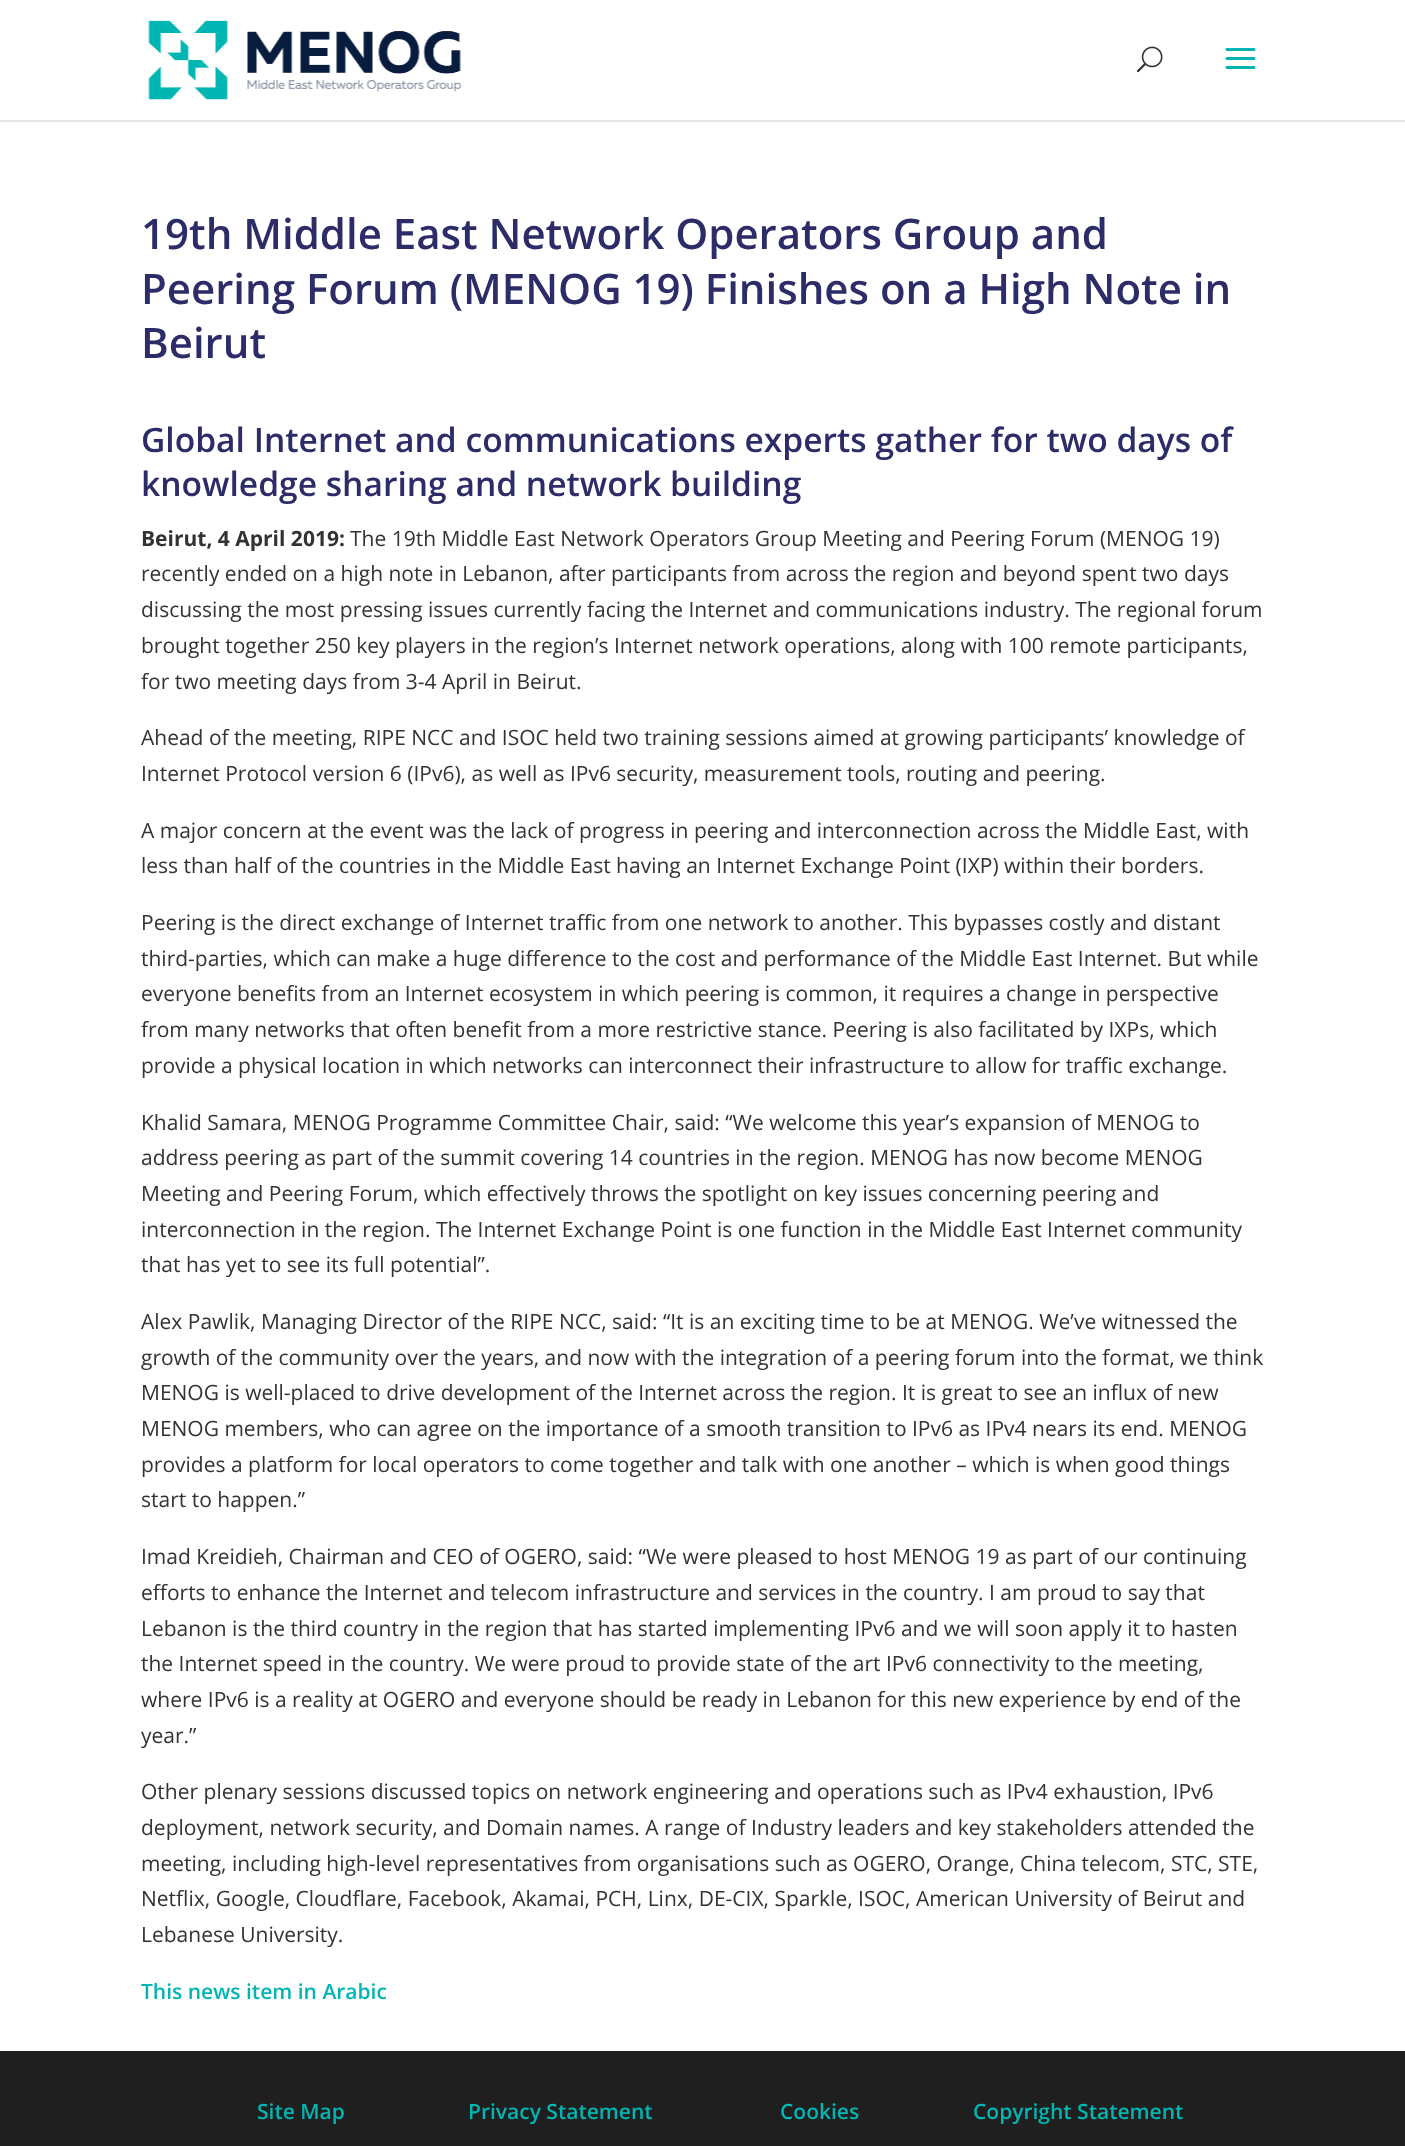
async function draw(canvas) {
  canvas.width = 1405;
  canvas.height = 2146;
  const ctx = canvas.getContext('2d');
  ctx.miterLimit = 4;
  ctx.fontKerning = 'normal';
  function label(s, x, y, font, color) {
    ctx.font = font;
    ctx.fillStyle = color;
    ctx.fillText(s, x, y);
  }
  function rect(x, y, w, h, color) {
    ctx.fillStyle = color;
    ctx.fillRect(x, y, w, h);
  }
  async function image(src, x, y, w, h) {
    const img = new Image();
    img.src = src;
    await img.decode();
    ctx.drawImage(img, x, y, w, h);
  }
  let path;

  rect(0, 0, 1405, 2146, '#fff');
  ctx.fillStyle = '#e6e6e6';
  path = new Path2D('M0 120V122H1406V2V120Z');
  ctx.fill(path);
  await image('assets/img1.png', 148, 20, 314, 80);
  await image('assets/img2.png', 1136, 46, 27, 27);
  await image('assets/img3.png', 1225, 48, 31, 21);
  label('19th Middle East Network Operators Group and', 141, 249, '600 42px Open Sans', '#2b2c68');
  label('Peering Forum (MENOG 19) Finishes on a High Note in', 141, 304, '600 42px Open Sans', '#2b2c68');
  label('Beirut', 141, 358, '600 42px Open Sans', '#2b2c68');
  label('Global Internet and communications experts gather for two days of', 141, 452, '600 33.6px Open Sans', '#2b2c68');
  label('knowledge sharing and network building', 141, 496, '600 33.6px Open Sans', '#2b2c68');
  label('Beirut, 4 April 2019:', 141, 546, 'bold 21px Open Sans', '#333');
  label('The 19th Middle East Network Operators Group Meeting and Peering Forum (MENOG 19)', 350, 546, '21px Open Sans', '#333');
  label('recently ended on a high note in Lebanon, after participants from across the region and beyond spent two days', 141, 581, '21px Open Sans', '#333');
  label('discussing the most pressing issues currently facing the Internet and communications industry. The regional forum', 141, 617, '21px Open Sans', '#333');
  label('brought together 250 key players in the region’s Internet network operations, along with 100 remote participants,', 141, 653, '21px Open Sans', '#333');
  label('for two meeting days from 3-4 April in Beirut.', 141, 689, '21px Open Sans', '#333');
  label('Ahead of the meeting, RIPE NCC and ISOC held two training sessions aimed at growing participants’ knowledge of', 141, 745, '21px Open Sans', '#333');
  label('Internet Protocol version 6 (IPv6), as well as IPv6 security, measurement tools, routing and peering.', 141, 781, '21px Open Sans', '#333');
  label('A major concern at the event was the lack of progress in peering and interconnection across the Middle East, with', 141, 838, '21px Open Sans', '#333');
  label('less than half of the countries in the Middle East having an Internet Exchange Point (IXP) within their borders.', 141, 873, '21px Open Sans', '#333');
  label('Peering is the direct exchange of Internet traffic from one network to another. This bypasses costly and distant', 141, 930, '21px Open Sans', '#333');
  label('third-parties, which can make a huge difference to the cost and performance of the Middle East Internet. But while', 141, 966, '21px Open Sans', '#333');
  label('everyone benefits from an Internet ecosystem in which peering is common, it requires a change in perspective', 141, 1001, '21px Open Sans', '#333');
  label('from many networks that often benefit from a more restrictive stance. Peering is also facilitated by IXPs, which', 141, 1037, '21px Open Sans', '#333');
  label('provide a physical location in which networks can interconnect their infrastructure to allow for traffic exchange.', 141, 1073, '21px Open Sans', '#333');
  label('Khalid Samara, MENOG Programme Committee Chair, said: “We welcome this year’s expansion of MENOG to', 141, 1130, '21px Open Sans', '#333');
  label('address peering as part of the summit covering 14 countries in the region. MENOG has now become MENOG', 141, 1165, '21px Open Sans', '#333');
  label('Meeting and Peering Forum, which effectively throws the spotlight on key issues concerning peering and', 141, 1201, '21px Open Sans', '#333');
  label('interconnection in the region. The Internet Exchange Point is one function in the Middle East Internet community', 141, 1237, '21px Open Sans', '#333');
  label('that has yet to see its full potential”.', 141, 1272, '21px Open Sans', '#333');
  label('Alex Pawlik, Managing Director of the RIPE NCC, said: “It is an exciting time to be at MENOG. We’ve witnessed the', 141, 1329, '21px Open Sans', '#333');
  label('growth of the community over the years, and now with the integration of a peering forum into the format, we think', 141, 1365, '21px Open Sans', '#333');
  label('MENOG is well-placed to drive development of the Internet across the region. It is great to see an influx of new', 141, 1400, '21px Open Sans', '#333');
  label('MENOG members, who can agree on the importance of a smooth transition to IPv6 as IPv4 nears its end. MENOG', 141, 1436, '21px Open Sans', '#333');
  label('provides a platform for local operators to come together and talk with one another – which is when good things', 141, 1472, '21px Open Sans', '#333');
  label('start to happen.”', 141, 1507, '21px Open Sans', '#333');
  label('Imad Kreidieh, Chairman and CEO of OGERO, said: “We were pleased to host MENOG 19 as part of our continuing', 141, 1564, '21px Open Sans', '#333');
  label('efforts to enhance the Internet and telecom infrastructure and services in the country. I am proud to say that', 141, 1600, '21px Open Sans', '#333');
  label('Lebanon is the third country in the region that has started implementing IPv6 and we will soon apply it to hasten', 141, 1636, '21px Open Sans', '#333');
  label('the Internet speed in the country. We were proud to provide state of the art IPv6 connectivity to the meeting,', 141, 1671, '21px Open Sans', '#333');
  label('where IPv6 is a reality at OGERO and everyone should be ready in Lebanon for this new experience by end of the', 141, 1707, '21px Open Sans', '#333');
  label('year.”', 141, 1743, '21px Open Sans', '#333');
  label('Other plenary sessions discussed topics on network engineering and operations such as IPv4 exhaustion, IPv6', 141, 1799, '21px Open Sans', '#333');
  label('deployment, network security, and Domain names. A range of Industry leaders and key stakeholders attended the', 141, 1835, '21px Open Sans', '#333');
  label('meeting, including high-level representatives from organisations such as OGERO, Orange, China telecom, STC, STE,', 141, 1871, '21px Open Sans', '#333');
  label('Netflix, Google, Cloudflare, Facebook, Akamai, PCH, Linx, DE-CIX, Sparkle, ISOC, American University of Beirut and', 141, 1906, '21px Open Sans', '#333');
  label('Lebanese University.', 141, 1942, '21px Open Sans', '#333');
  label('This news item in Arabic', 141, 1999, '600 21px Open Sans', '#00b6b2');
  rect(0, 2051, 1405, 95, '#1f1f1f');
  label('Site Map', 257, 2119, '600 21px Open Sans', '#00b6b2');
  label('Privacy Statement', 468, 2119, '600 21px Open Sans', '#00b6b2');
  label('Cookies', 780, 2119, '600 21px Open Sans', '#00b6b2');
  label('Copyright Statement', 973, 2119, '600 21px Open Sans', '#00b6b2');
}

draw(document.querySelector('canvas'));
